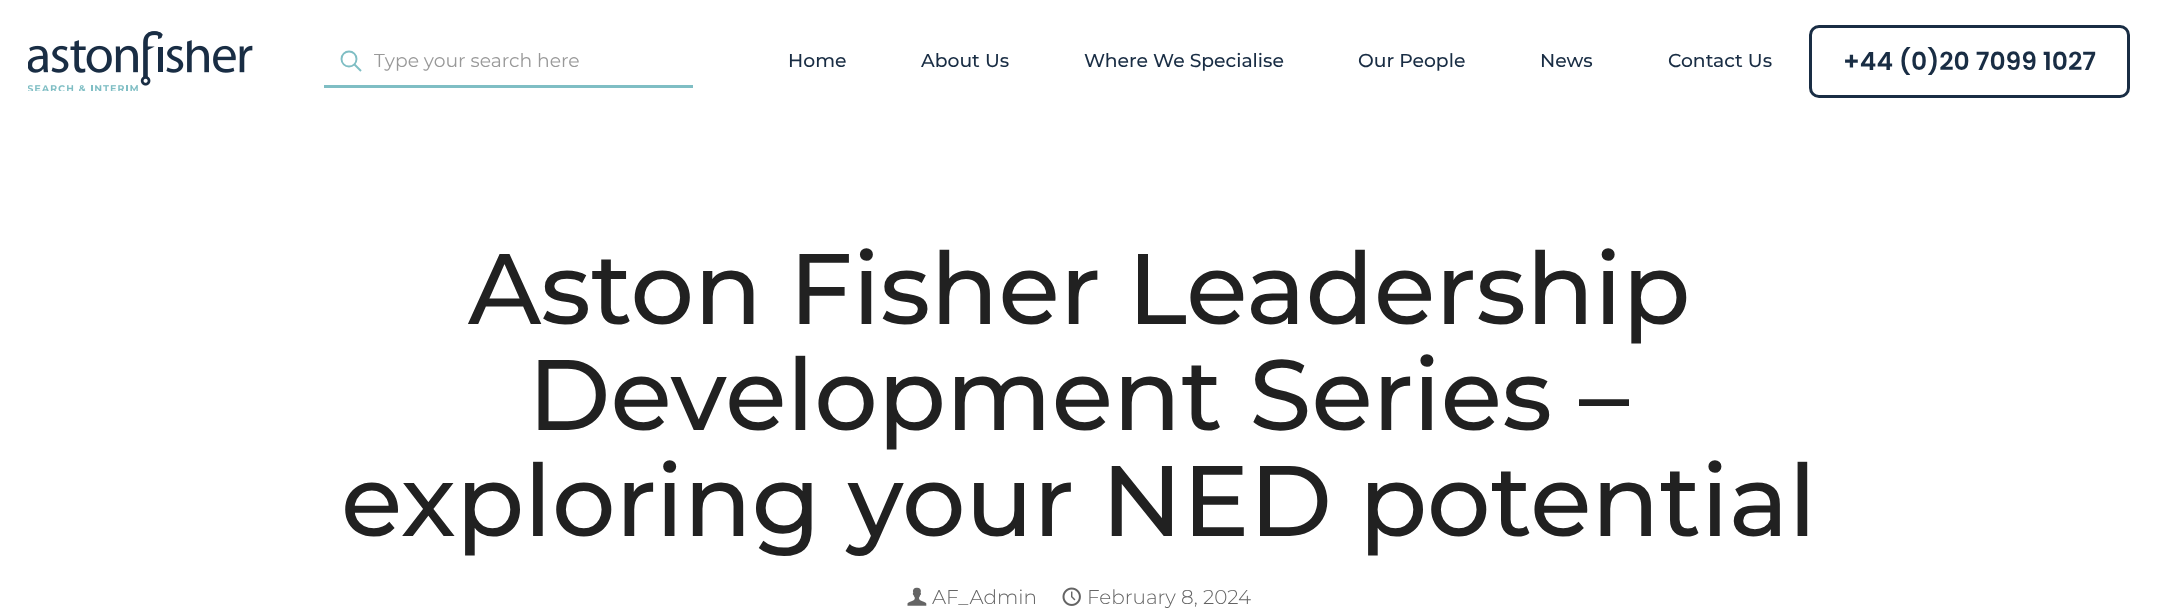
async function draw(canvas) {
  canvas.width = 2157;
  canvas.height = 614;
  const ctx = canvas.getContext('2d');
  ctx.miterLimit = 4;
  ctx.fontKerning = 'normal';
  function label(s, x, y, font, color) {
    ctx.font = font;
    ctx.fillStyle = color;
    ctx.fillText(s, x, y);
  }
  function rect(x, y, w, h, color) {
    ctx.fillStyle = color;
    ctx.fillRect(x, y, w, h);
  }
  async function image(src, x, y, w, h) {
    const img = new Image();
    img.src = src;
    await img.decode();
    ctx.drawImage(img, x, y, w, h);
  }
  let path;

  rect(0, 0, 2157, 614, '#fff');
  await image('assets/img1.png', 28, 31, 225, 60);
  ctx.beginPath();
  ctx.arc(349, 59, 7.5, 0, 2 * Math.PI);
  ctx.strokeStyle = '#7fbec4';
  ctx.lineWidth = 1.9;
  ctx.stroke();
  path = new Path2D('M354.5 64.5L361 71');
  ctx.stroke(path);
  rect(324, 85, 369, 3, '#7fbec4');
  label('Type your search here', 374, 67, '100 18.75px "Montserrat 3"', '#999');
  label('Home', 788, 67, '100 18.75px Montserrat', '#192d44');
  label('About Us', 921, 67, '100 18.75px Montserrat', '#192d44');
  label('Where We Specialise', 1084, 67, '100 18.75px Montserrat', '#192d44');
  label('Our People', 1358, 67, '100 18.75px Montserrat', '#192d44');
  label('News', 1540, 67, '100 18.75px Montserrat', '#192d44');
  label('Contact Us', 1668, 67, '100 18.75px Montserrat', '#192d44');
  ctx.beginPath();
  ctx.roundRect(1810.5, 26.5, 318, 70, 8.5);
  ctx.strokeStyle = '#192d44';
  ctx.lineWidth = 3;
  ctx.stroke();
  label('+44 (0)20 7099 1027', 1843, 70, '600 25px Poppins', '#192d44');
  label('Aston Fisher Leadership', 468, 324, '100 100px Montserrat', '#212121');
  label('Development Series –', 528, 430, '100 100px Montserrat', '#212121');
  label('exploring your NED potential', 341, 536, '100 100px Montserrat', '#212121');
  await image('assets/img2.png', 907, 587, 20, 19);
  label('AF_Admin', 932, 604, '100 20px "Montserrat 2"', '#646464');
  await image('assets/img3.png', 1062, 587, 19, 19);
  label('February 8, 2024', 1087, 604, '100 20px "Montserrat 2"', '#646464');
}

draw(document.querySelector('canvas'));
